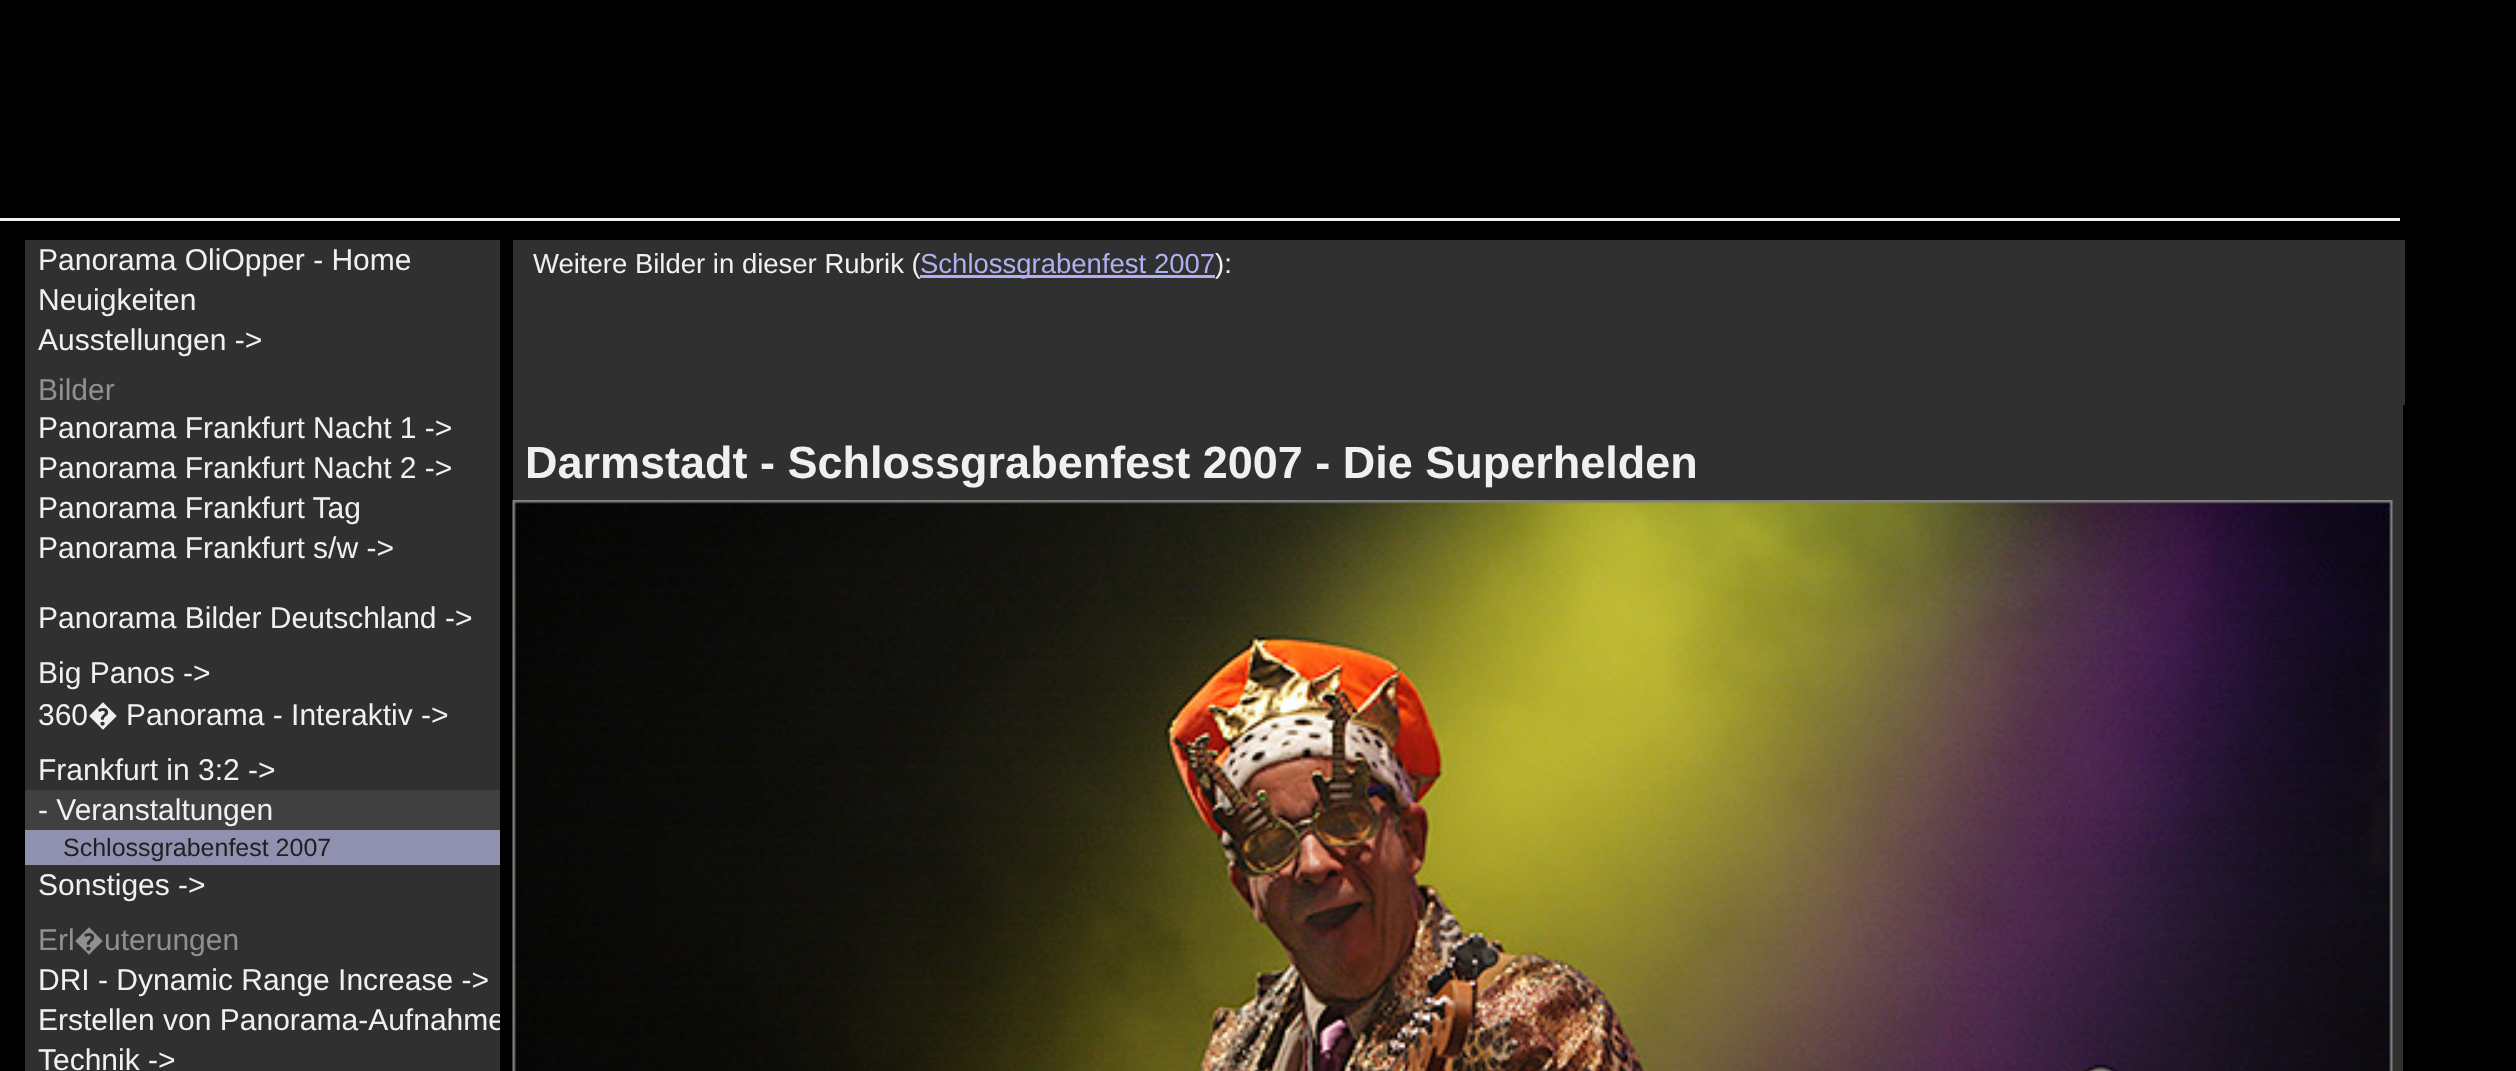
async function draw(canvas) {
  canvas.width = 2516;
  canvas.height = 1071;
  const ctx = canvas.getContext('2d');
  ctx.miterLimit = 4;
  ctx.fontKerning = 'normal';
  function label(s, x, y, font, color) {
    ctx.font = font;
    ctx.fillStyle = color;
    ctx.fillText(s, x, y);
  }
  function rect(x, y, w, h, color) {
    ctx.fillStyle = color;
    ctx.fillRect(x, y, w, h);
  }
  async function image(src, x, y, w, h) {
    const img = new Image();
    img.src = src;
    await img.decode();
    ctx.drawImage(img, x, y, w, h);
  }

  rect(0, 0, 2516, 1071, '#000');
  rect(0, 218, 2400, 3, '#f0f0f0');
  rect(25, 240, 475, 550, '#303030');
  label('Panorama OliOpper - Home', 38, 270, '30px Liberation Sans', '#f0f0f0');
  label('Neuigkeiten', 38, 310, '30px Liberation Sans', '#f0f0f0');
  label('Ausstellungen ->', 38, 350, '30px Liberation Sans', '#f0f0f0');
  label('Bilder', 38, 400, '30px Liberation Sans', '#909090');
  label('Panorama Frankfurt Nacht 1 ->', 38, 438, '30px Liberation Sans', '#f0f0f0');
  label('Panorama Frankfurt Nacht 2 ->', 38, 478, '30px Liberation Sans', '#f0f0f0');
  label('Panorama Frankfurt Tag', 38, 518, '30px Liberation Sans', '#f0f0f0');
  label('Panorama Frankfurt s/w ->', 38, 558, '30px Liberation Sans', '#f0f0f0');
  label('Panorama Bilder Deutschland ->', 38, 628, '30px Liberation Sans', '#f0f0f0');
  label('Big Panos ->', 38, 683, '30px Liberation Sans', '#f0f0f0');
  label('360', 38, 725, '30px Liberation Sans', '#f0f0f0');
  label('�', 88, 725, '30px Noto Sans', '#f0f0f0');
  label('Panorama - Interaktiv ->', 126, 725, '30px Liberation Sans', '#f0f0f0');
  label('Frankfurt in 3:2 ->', 38, 780, '30px Liberation Sans', '#f0f0f0');
  rect(25, 790, 475, 40, '#404040');
  label('- Veranstaltungen', 38, 820, '30px Liberation Sans', '#f0f0f0');
  rect(25, 830, 475, 35, '#9090b0');
  label('Schlossgrabenfest 2007', 63, 856, '25px Liberation Sans', '#202020');
  rect(25, 865, 475, 206, '#303030');
  label('Sonstiges ->', 38, 895, '30px Liberation Sans', '#f0f0f0');
  label('Erl', 38, 950, '30px Liberation Sans', '#909090');
  label('�', 74, 950, '30px Noto Sans', '#909090');
  label('uterungen', 104, 950, '30px Liberation Sans', '#909090');
  label('DRI - Dynamic Range Increase ->', 38, 990, '30px Liberation Sans', '#f0f0f0');
  ctx.save();
  ctx.beginPath();
  ctx.rect(25, 240, 475, 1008);
  ctx.clip();
  label('Erstellen von Panorama-Aufnahme', 38, 1030, '30px Liberation Sans', '#f0f0f0');
  ctx.restore();
  label('Technik ->', 38, 1070, '30px Liberation Sans', '#f0f0f0');
  rect(513, 240, 1892, 165, '#303030');
  label('Weitere Bilder in dieser Rubrik (', 533, 273, '27.5px Liberation Sans', '#f0f0f0');
  rect(920, 275, 295, 3, '#b0b0f0');
  label('Schlossgrabenfest 2007', 920, 273, '27.5px Liberation Sans', '#b0b0f0');
  label('):', 1215, 273, '27.5px Liberation Sans', '#f0f0f0');
  rect(513, 405, 1890, 666, '#303030');
  label('Darmstadt - Schlossgrabenfest 2007 - Die Superhelden', 525, 478, 'bold 45px Liberation Sans', '#f0f0f0');
  await image('assets/img1.png', 512, 500, 1881, 571);
}

draw(document.querySelector('canvas'));
